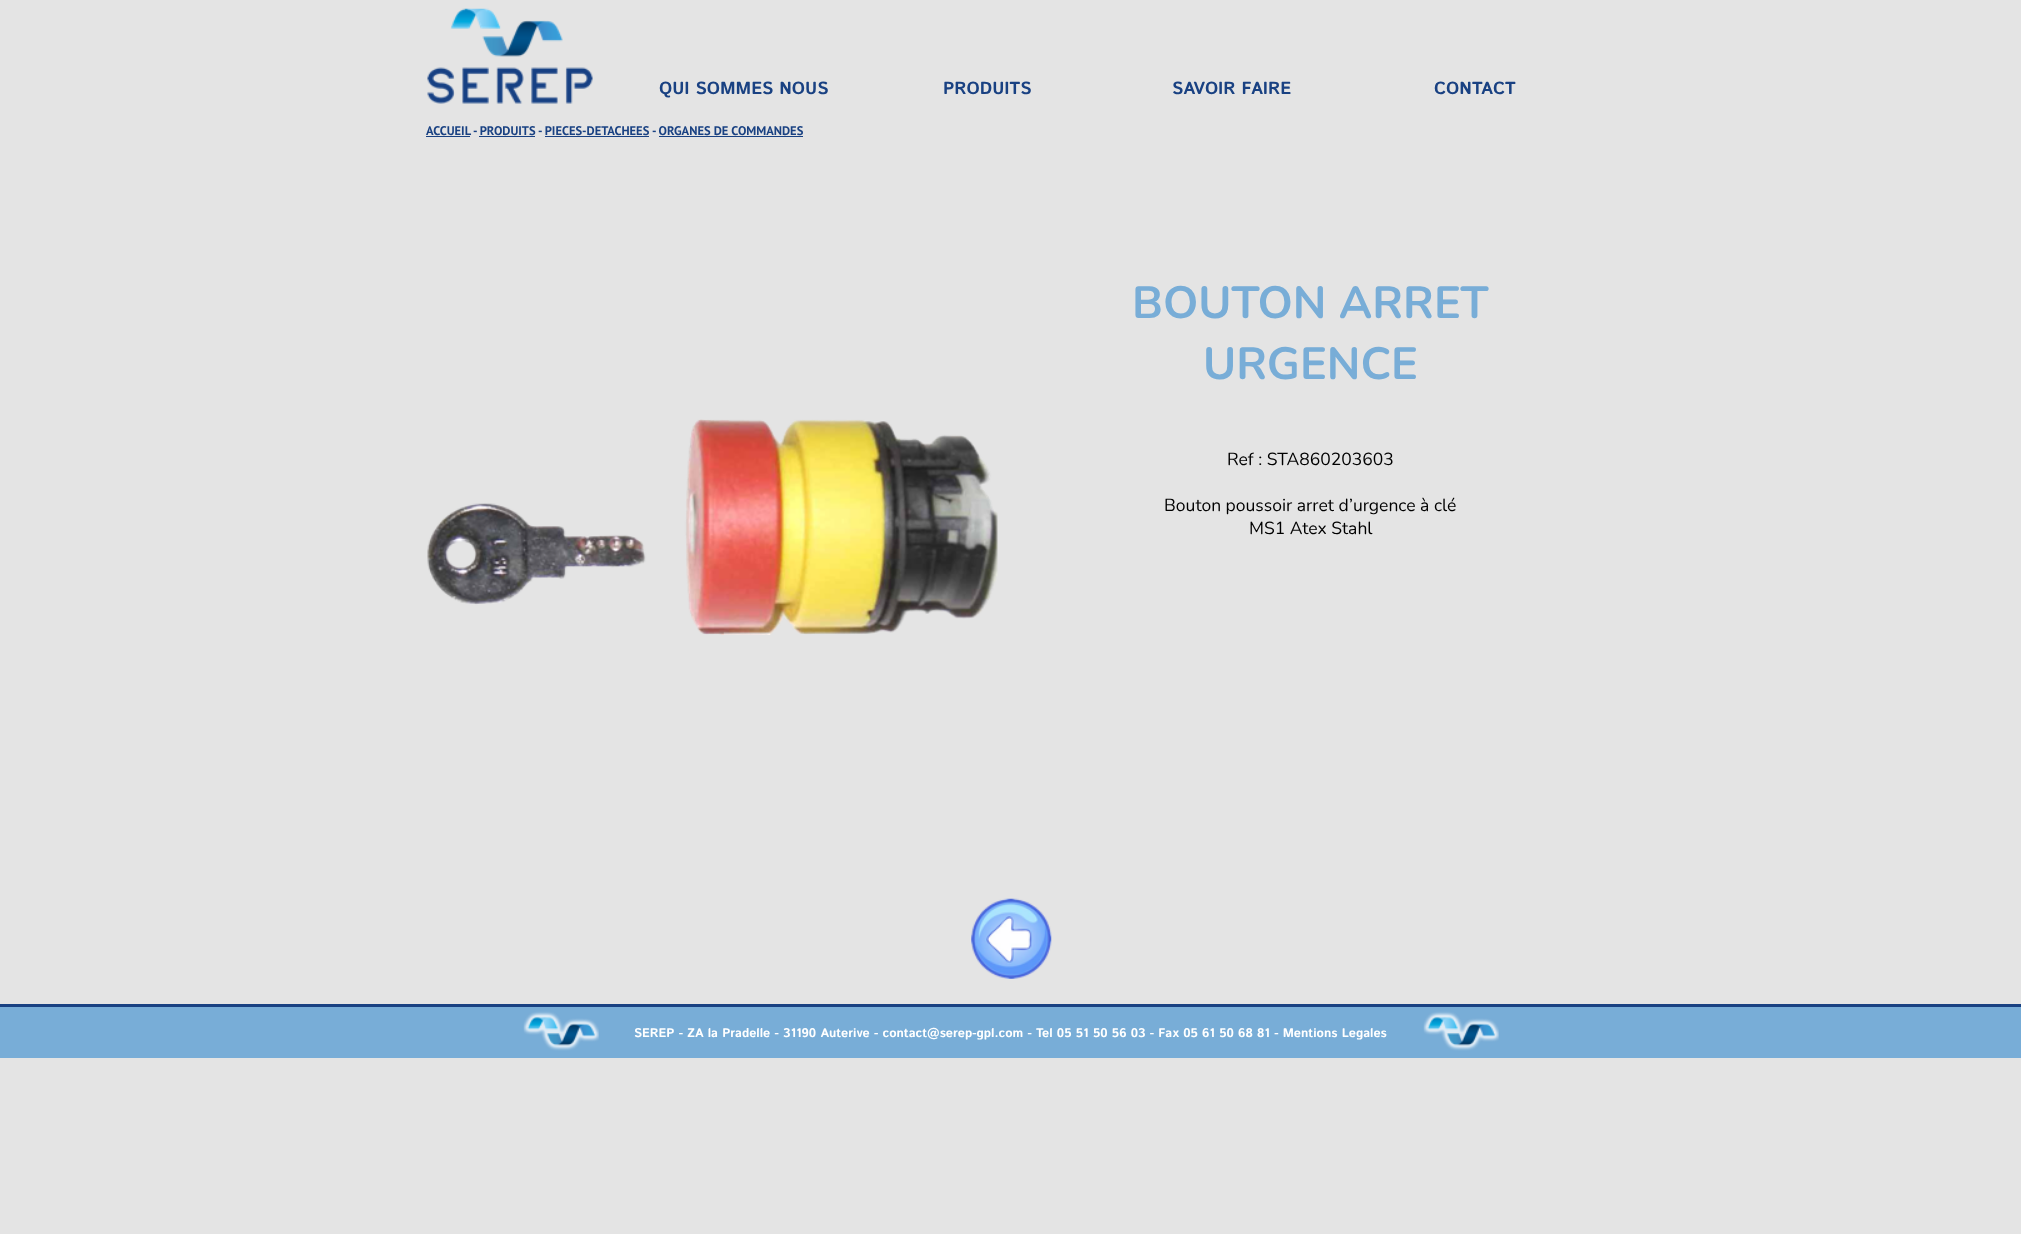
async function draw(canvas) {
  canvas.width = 2021;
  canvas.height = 1234;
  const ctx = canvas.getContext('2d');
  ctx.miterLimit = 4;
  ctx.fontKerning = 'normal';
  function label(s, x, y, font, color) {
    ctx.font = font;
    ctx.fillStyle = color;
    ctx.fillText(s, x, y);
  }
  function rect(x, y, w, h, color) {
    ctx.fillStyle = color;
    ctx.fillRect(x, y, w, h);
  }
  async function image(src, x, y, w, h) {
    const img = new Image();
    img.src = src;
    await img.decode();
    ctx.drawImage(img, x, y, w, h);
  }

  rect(0, 0, 2021, 1234, '#e4e4e4');
  rect(0, 1007, 2021, 51, '#78add7');
  await image('assets/img1.png', 427, 8, 166, 96);
  label('QUI SOMMES NOUS', 659, 94, 'bold 17.5px Istok Web', '#194182');
  label('PRODUITS', 943, 94, 'bold 17.5px Istok Web', '#194182');
  label('SAVOIR FAIRE', 1172, 94, 'bold 17.5px Istok Web', '#194182');
  label('CONTACT', 1434, 94, 'bold 17.5px Istok Web', '#194182');
  label('ACCUEIL', 426, 135, 'bold 12.5px PT Sans', '#194182');
  rect(426, 136, 44, 1, '#194182');
  label('- PRODUITS', 473, 135, 'bold 12.5px PT Sans', '#194182');
  label('- PIECES-DETACHEES', 538, 135, 'bold 12.5px PT Sans', '#194182');
  label('- ORGANES DE COMMANDES', 652, 135, 'bold 12.5px PT Sans', '#194182');
  rect(479, 136, 56, 1, '#194182');
  rect(545, 136, 104, 1, '#194182');
  rect(659, 136, 144, 1, '#194182');
  await image('assets/img2.png', 427, 419, 571, 216);
  label('BOUTON ARRET', 1132, 318, 'bold 45px Nunito', '#78add7');
  label('URGENCE', 1203, 379, 'bold 45px Nunito', '#78add7');
  label('Ref : STA860203603', 1227, 465, '17.5px Nunito', '#000');
  label('Bouton poussoir arret d’urgence à clé', 1164, 511, '17.5px Nunito', '#000');
  label('MS1 Atex Stahl', 1249, 534, '17.5px Nunito', '#000');
  await image('assets/img3.png', 971, 898, 81, 81);
  await image('assets/img4.png', 524, 1013, 75, 36);
  await image('assets/img5.png', 1424, 1013, 75, 36);
  rect(0, 1004, 2021, 3, '#194182');
  await image('assets/img6.png', 523, 1011, 76, 40);
  label('SEREP - ZA la Pradelle - 31190 Auterive - contact@serep-gpl.com - Tel 05 51 50 56 03 - Fax 05 61 50 68 81 - Mentions Legales', 634, 1037, 'bold 12.5px Istok Web', '#fff');
  await image('assets/img7.png', 1423, 1011, 76, 40);
}

draw(document.querySelector('canvas'));
